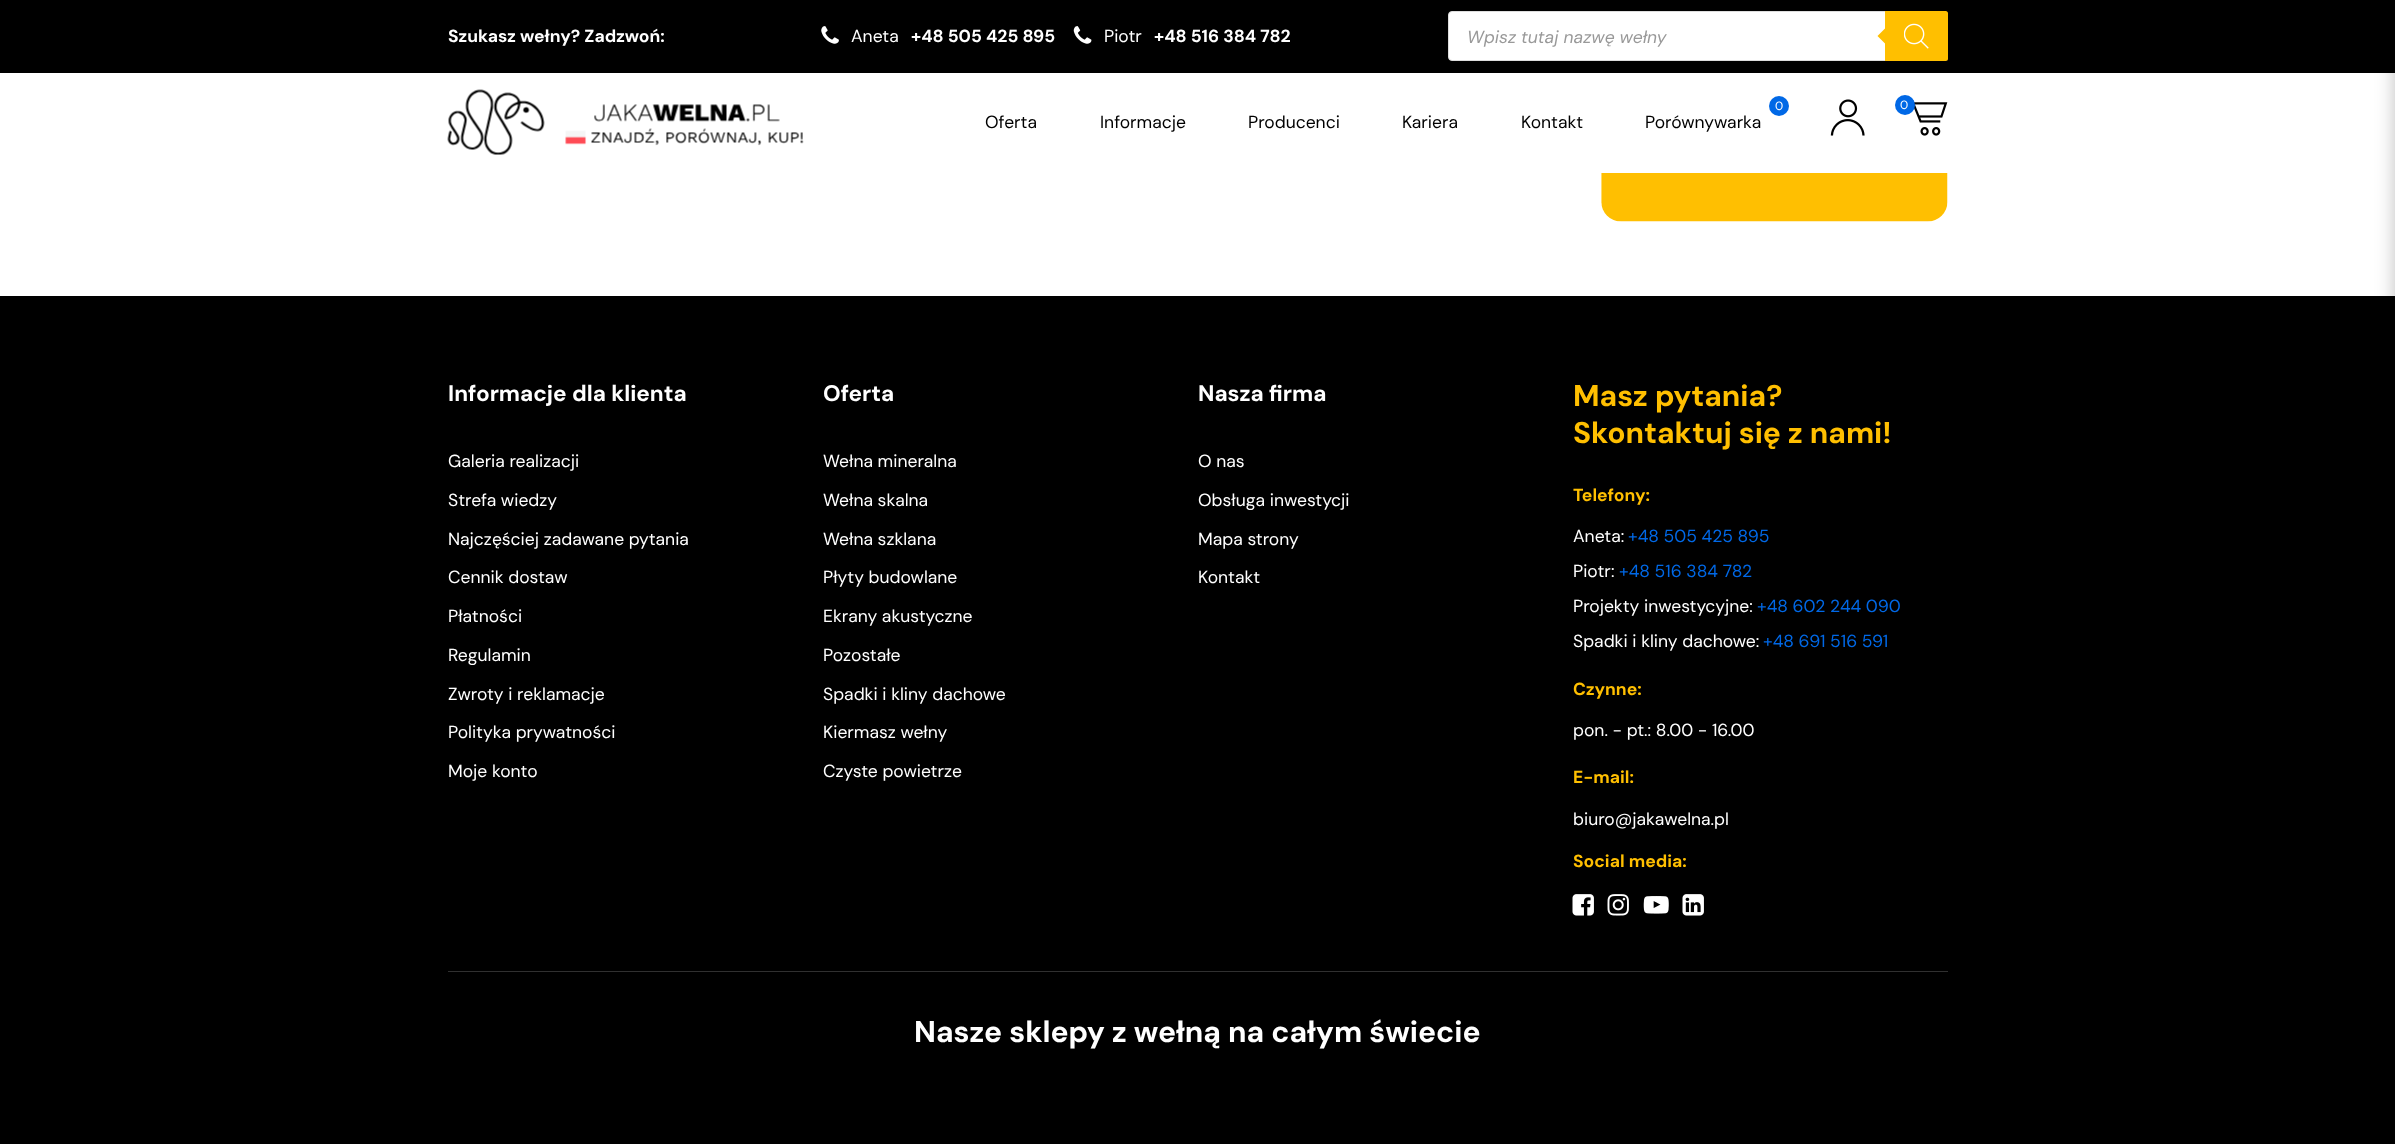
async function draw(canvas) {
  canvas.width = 2395;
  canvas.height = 1144;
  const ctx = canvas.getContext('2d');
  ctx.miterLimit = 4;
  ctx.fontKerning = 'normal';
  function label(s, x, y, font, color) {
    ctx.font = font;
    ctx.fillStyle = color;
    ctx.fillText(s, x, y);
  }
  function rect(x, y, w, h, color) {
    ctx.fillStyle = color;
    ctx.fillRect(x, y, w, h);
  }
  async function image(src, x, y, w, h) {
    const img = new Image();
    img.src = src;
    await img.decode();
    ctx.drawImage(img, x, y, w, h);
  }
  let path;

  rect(0, 0, 2395, 1144, '#fff');
  rect(0, 0, 2395, 73, '#000');
  label('Szukasz wełny? Zadzwoń:', 448, 42, 'bold 17.5px DM Sans', '#fff');
  await image('assets/img1.png', 821, 26, 18, 18);
  label('Aneta', 851, 42, '17.5px DM Sans', '#fff');
  label('+48 505 425 895', 911, 42, 'bold 17.5px DM Sans', '#fff');
  await image('assets/img2.png', 1073, 26, 19, 18);
  label('Piotr', 1104, 42, '17.5px DM Sans', '#fff');
  label('+48 516 384 782', 1154, 42, 'bold 17.5px DM Sans', '#fff');
  ctx.beginPath();
  ctx.roundRect(1448.5, 11.5, 499, 49, 3.5);
  ctx.fill();
  ctx.strokeStyle = '#ddd';
  ctx.stroke();
  label('Wpisz tutaj nazwę wełny', 1467, 43, 'italic 17.5px DM Sans', '#999');
  ctx.fillStyle = '#ffbf00';
  ctx.beginPath();
  ctx.roundRect(1885, 11, 63, 50, [0, 2.5, 2.5, 0]);
  ctx.fill();
  path = new Path2D('M1887.5 26V46L1877.5 36Z');
  ctx.fill(path);
  await image('assets/img3.png', 1904, 23, 25, 26);
  await image('assets/img4.png', 447, 89, 357, 66);
  label('Oferta', 985, 128, '17.5px DM Sans', '#000');
  label('Informacje', 1100, 128, '17.5px DM Sans', '#000');
  label('Producenci', 1248, 128, '17.5px DM Sans', '#000');
  label('Kariera', 1402, 128, '17.5px DM Sans', '#000');
  label('Kontakt', 1521, 128, '17.5px DM Sans', '#000');
  ctx.fillStyle = '#0068e6';
  ctx.beginPath();
  ctx.arc(1779, 106, 10, 0, 2 * Math.PI);
  ctx.fill();
  label('0', 1775, 110, '12px DM Sans', '#fff');
  label('Porównywarka', 1645, 128, '17.5px DM Sans', '#000');
  await image('assets/img5.png', 1830, 99, 35, 37);
  await image('assets/img6.png', 1913, 100, 35, 36);
  ctx.fillStyle = '#0068e6';
  ctx.beginPath();
  ctx.arc(1905, 105, 10, 0, 2 * Math.PI);
  ctx.fill();
  label('0', 1900, 109, '12px DM Sans', '#fff');
  rect(0, 296, 2395, 848, '#000');
  ctx.fillStyle = '#00000040';
  ctx.filter = 'blur(9.5px)';
  ctx.beginPath();
  ctx.rect(2395, 0, 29, 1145);
  ctx.fill();
  ctx.filter = 'none';
  await image('assets/img7.png', 1601, 173, 347, 49);
  label('Informacje dla klienta', 448, 401, 'bold 22.5px DM Sans', '#fff');
  label('Galeria realizacji', 448, 467, '17.5px DM Sans', '#fff');
  label('Strefa wiedzy', 448, 506, '17.5px DM Sans', '#fff');
  label('Najczęściej zadawane pytania', 448, 545, '17.5px DM Sans', '#fff');
  label('Cennik dostaw', 448, 583, '17.5px DM Sans', '#fff');
  label('Płatności', 448, 622, '17.5px DM Sans', '#fff');
  label('Regulamin', 448, 661, '17.5px DM Sans', '#fff');
  label('Zwroty i reklamacje', 448, 700, '17.5px DM Sans', '#fff');
  label('Polityka prywatności', 448, 738, '17.5px DM Sans', '#fff');
  label('Moje konto', 448, 777, '17.5px DM Sans', '#fff');
  label('Oferta', 823, 401, 'bold 22.5px DM Sans', '#fff');
  label('Wełna mineralna', 823, 467, '17.5px DM Sans', '#fff');
  label('Wełna skalna', 823, 506, '17.5px DM Sans', '#fff');
  label('Wełna szklana', 823, 545, '17.5px DM Sans', '#fff');
  label('Płyty budowlane', 823, 583, '17.5px DM Sans', '#fff');
  label('Ekrany akustyczne', 823, 622, '17.5px DM Sans', '#fff');
  label('Pozostałe', 823, 661, '17.5px DM Sans', '#fff');
  label('Spadki i kliny dachowe', 823, 700, '17.5px DM Sans', '#fff');
  label('Kiermasz wełny', 823, 738, '17.5px DM Sans', '#fff');
  label('Czyste powietrze', 823, 777, '17.5px DM Sans', '#fff');
  label('Nasza firma', 1198, 401, 'bold 22.5px DM Sans', '#fff');
  label('O nas', 1198, 467, '17.5px DM Sans', '#fff');
  label('Obsługa inwestycji', 1198, 506, '17.5px DM Sans', '#fff');
  label('Mapa strony', 1198, 545, '17.5px DM Sans', '#fff');
  label('Kontakt', 1198, 583, '17.5px DM Sans', '#fff');
  label('Masz pytania?', 1573, 406, 'bold 30px DM Sans', '#ffbf00');
  label('Skontaktuj się z nami!', 1573, 443, 'bold 30px DM Sans', '#ffbf00');
  label('Telefony:', 1573, 501, 'bold 17.5px DM Sans', '#ffbf00');
  label('Aneta:', 1573, 542, '17.5px DM Sans', '#fff');
  label('+48 505 425 895', 1628, 542, '17.5px DM Sans', '#0068e6');
  label('Piotr:', 1573, 577, '17.5px DM Sans', '#fff');
  label('+48 516 384 782', 1619, 577, '17.5px DM Sans', '#0068e6');
  label('Projekty inwestycyjne:', 1573, 612, '17.5px DM Sans', '#fff');
  label('+48 602 244 090', 1757, 612, '17.5px DM Sans', '#0068e6');
  label('Spadki i kliny dachowe:', 1573, 647, '17.5px DM Sans', '#fff');
  label('+48 691 516 591', 1763, 647, '17.5px DM Sans', '#0068e6');
  label('Czynne:', 1573, 695, 'bold 17.5px DM Sans', '#ffbf00');
  label('pon. - pt.: 8.00 - 16.00', 1573, 736, '17.5px DM Sans', '#fff');
  label('E-mail:', 1573, 783, 'bold 17.5px DM Sans', '#ffbf00');
  label('biuro@jakawelna.pl', 1573, 825, '17.5px DM Sans', '#fff');
  label('Social media:', 1573, 867, 'bold 17.5px DM Sans', '#ffbf00');
  await image('assets/img8.png', 1572, 894, 22, 22);
  await image('assets/img9.png', 1607, 894, 22, 22);
  await image('assets/img10.png', 1643, 896, 26, 18);
  await image('assets/img11.png', 1682, 894, 22, 22);
  rect(448, 971, 1500, 1, '#303030');
  label('Nasze sklepy z wełną na całym świecie', 914, 1042, 'bold 30px DM Sans', '#fff');
}

draw(document.querySelector('canvas'));
